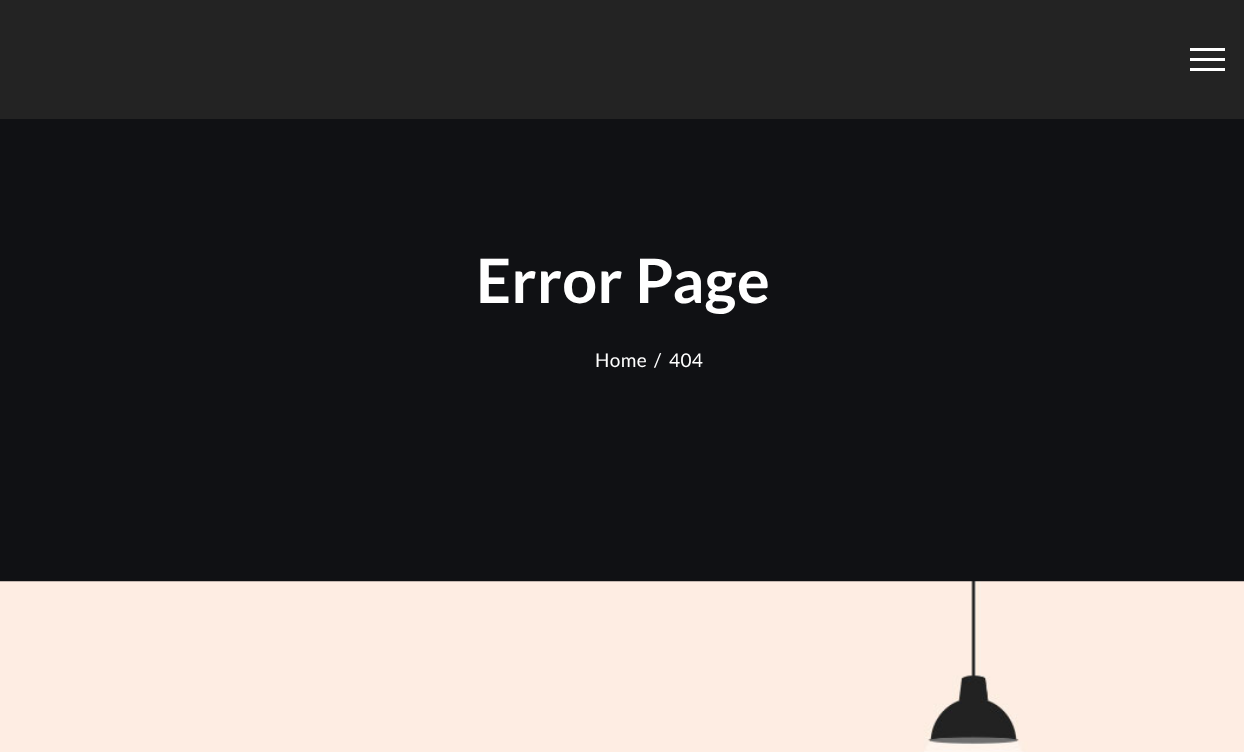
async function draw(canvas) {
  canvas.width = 1244;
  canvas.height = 752;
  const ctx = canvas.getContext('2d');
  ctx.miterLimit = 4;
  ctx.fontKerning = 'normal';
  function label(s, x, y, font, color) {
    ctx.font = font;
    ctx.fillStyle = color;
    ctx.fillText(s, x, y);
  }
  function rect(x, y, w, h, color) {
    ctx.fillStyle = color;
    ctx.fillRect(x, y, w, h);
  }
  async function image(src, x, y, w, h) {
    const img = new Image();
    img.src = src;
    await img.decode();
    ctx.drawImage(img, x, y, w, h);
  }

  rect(0, 0, 1244, 752, '#101114');
  rect(0, 0, 1244, 119, '#232323');
  rect(1190, 58, 35, 3, '#fff');
  rect(1190, 48, 35, 3, '#fff');
  rect(1190, 68, 35, 3, '#fff');
  ctx.letterSpacing = '0.4px';
  label('Error Page', 476, 303, 'bold 61.25px Lato', '#fff');
  label('Home', 595, 367, '19px Lato', '#fff');
  label('/', 654, 367, '19px Lato', '#fff');
  label('404', 669, 367, '19px Lato', '#fff');
  await image('assets/img1.png', 0, 581, 1244, 171);
}

draw(document.querySelector('canvas'));
